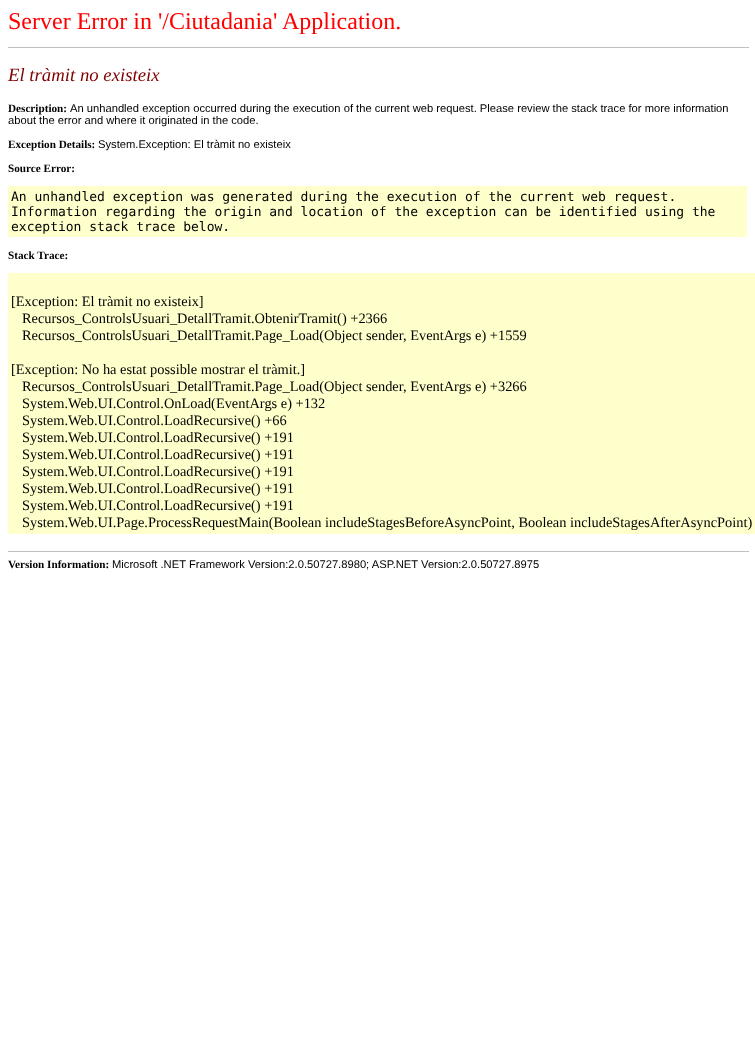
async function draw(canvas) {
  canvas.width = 755;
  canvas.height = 1063;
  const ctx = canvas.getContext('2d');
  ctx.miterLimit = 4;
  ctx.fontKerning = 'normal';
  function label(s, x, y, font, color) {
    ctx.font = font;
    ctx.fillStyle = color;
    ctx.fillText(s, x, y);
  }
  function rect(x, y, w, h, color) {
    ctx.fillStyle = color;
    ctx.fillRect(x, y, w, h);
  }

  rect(0, 0, 755, 1063, '#fff');
  label('Server Error in \'/Ciutadania\' Application.', 8, 29, '24px Liberation Serif', '#f00');
  rect(8, 47, 741, 1, '#c0c0c0');
  label('El tràmit no existeix', 8, 81, 'italic 18.75px Liberation Serif', '#800000');
  label('Description:', 8, 112, 'bold 11.2px Liberation Serif', '#000');
  label('An unhandled exception occurred during the execution of the current web request. Please review the stack trace for more information', 70, 112, '11.2px Liberation Sans', '#000');
  label('about the error and where it originated in the code.', 8, 124, '11.2px Liberation Sans', '#000');
  label('Exception Details:', 8, 148, 'bold 11.2px Liberation Serif', '#000');
  label('System.Exception: El tràmit no existeix', 98, 148, '11.2px Liberation Sans', '#000');
  label('Source Error:', 8, 172, 'bold 11.2px Liberation Serif', '#000');
  rect(8, 186, 739, 51, '#ffc');
  label('An unhandled exception was generated during the execution of the current web request.', 11, 201, '13px DejaVu Sans Mono', '#000');
  label('Information regarding the origin and location of the exception can be identified using the', 11, 216, '13px DejaVu Sans Mono', '#000');
  label('exception stack trace below.', 11, 231, '13px DejaVu Sans Mono', '#000');
  label('Stack Trace:', 8, 259, 'bold 11.2px Liberation Serif', '#000');
  rect(8, 273, 747, 261, '#ffc');
  label('[Exception: El tràmit no existeix]', 11, 306, '14.4px Liberation Serif', '#000');
  label('Recursos_ControlsUsuari_DetallTramit.ObtenirTramit() +2366', 22, 323, '14.4px Liberation Serif', '#000');
  label('Recursos_ControlsUsuari_DetallTramit.Page_Load(Object sender, EventArgs e) +1559', 22, 340, '14.4px Liberation Serif', '#000');
  label('[Exception: No ha estat possible mostrar el tràmit.]', 11, 374, '14.4px Liberation Serif', '#000');
  label('Recursos_ControlsUsuari_DetallTramit.Page_Load(Object sender, EventArgs e) +3266', 22, 391, '14.4px Liberation Serif', '#000');
  label('System.Web.UI.Control.OnLoad(EventArgs e) +132', 22, 408, '14.4px Liberation Serif', '#000');
  label('System.Web.UI.Control.LoadRecursive() +66', 22, 425, '14.4px Liberation Serif', '#000');
  label('System.Web.UI.Control.LoadRecursive() +191', 22, 442, '14.4px Liberation Serif', '#000');
  label('System.Web.UI.Control.LoadRecursive() +191', 22, 459, '14.4px Liberation Serif', '#000');
  label('System.Web.UI.Control.LoadRecursive() +191', 22, 476, '14.4px Liberation Serif', '#000');
  label('System.Web.UI.Control.LoadRecursive() +191', 22, 493, '14.4px Liberation Serif', '#000');
  label('System.Web.UI.Control.LoadRecursive() +191', 22, 510, '14.4px Liberation Serif', '#000');
  label('System.Web.UI.Page.ProcessRequestMain(Boolean includeStagesBeforeAsyncPoint, Boolean includeStagesAfterAsyncPoint)', 22, 527, '14.4px Liberation Serif', '#000');
  rect(8, 551, 741, 1, '#c0c0c0');
  label('Version Information:', 8, 568, 'bold 11.2px Liberation Serif', '#000');
  label('Microsoft .NET Framework Version:2.0.50727.8980; ASP.NET Version:2.0.50727.8975', 112, 568, '11.2px Liberation Sans', '#000');
}

draw(document.querySelector('canvas'));
